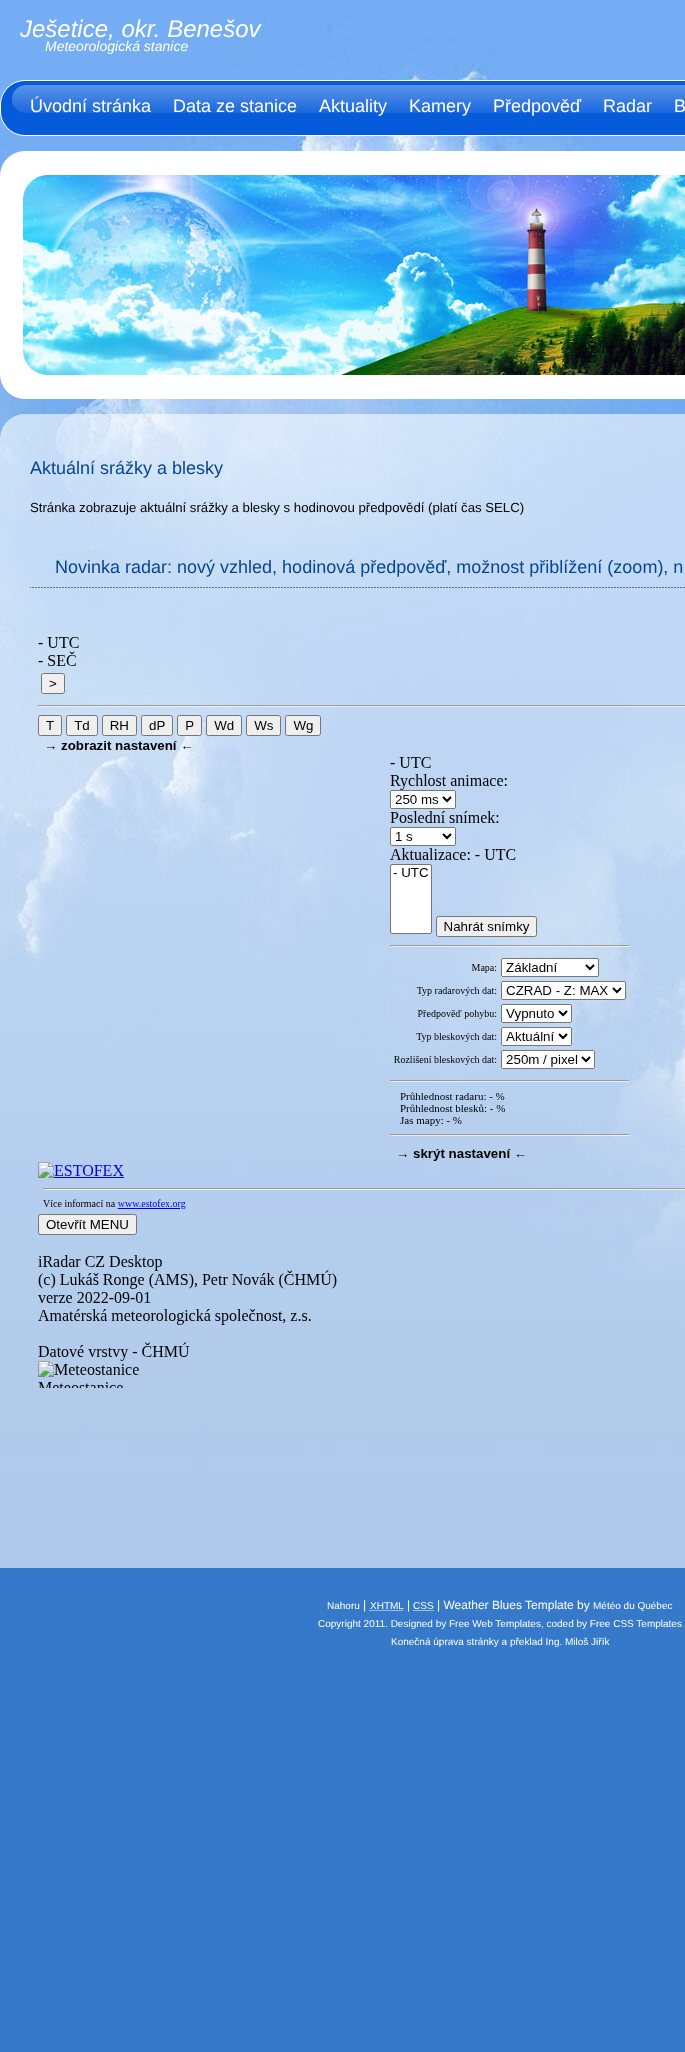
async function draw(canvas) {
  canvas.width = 685;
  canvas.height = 2052;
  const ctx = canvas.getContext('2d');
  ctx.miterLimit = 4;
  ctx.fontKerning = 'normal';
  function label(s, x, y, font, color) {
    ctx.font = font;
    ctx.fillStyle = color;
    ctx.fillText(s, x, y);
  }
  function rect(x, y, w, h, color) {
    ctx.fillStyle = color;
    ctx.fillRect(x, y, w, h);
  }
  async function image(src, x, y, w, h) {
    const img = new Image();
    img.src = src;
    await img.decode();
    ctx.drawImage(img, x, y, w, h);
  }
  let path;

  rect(0, 0, 685, 2052, '#3679ca');
  await image('assets/img1.png', 0, 0, 685, 1472);
  label('Ješetice, okr. Benešov', 20, 37, 'italic 24px Liberation Sans', '#fff');
  label('Meteorologická stanice', 45, 51, 'italic 14px Liberation Sans', '#fff');
  await image('assets/img2.png', 0, 80, 685, 56);
  label('Úvodní stránka', 30, 112, '18px Liberation Sans', '#fff');
  label('Data ze stanice', 173, 112, '18px Liberation Sans', '#fff');
  label('Aktuality', 319, 112, '18px Liberation Sans', '#fff');
  label('Kamery', 409, 112, '18px Liberation Sans', '#fff');
  label('Předpověď', 493, 112, '18px Liberation Sans', '#fff');
  label('Radar', 603, 112, '18px Liberation Sans', '#fff');
  label('B', 674, 112, '18px Liberation Sans', '#fff');
  await image('assets/img3.png', 0, 151, 685, 24);
  rect(0, 175, 23, 200, '#fff');
  await image('assets/img4.png', 23, 175, 662, 200);
  await image('assets/img5.png', 0, 375, 685, 24);
  await image('assets/img6.png', 0, 414, 685, 24);
  rect(0, 438, 685, 1130, '#ffffff99');
  label('Aktuální srážky a blesky', 30, 474, '18px Liberation Sans', '#074690');
  label('Stránka zobrazuje aktuální srážky a blesky s hodinovou předpovědí (platí čas SELC)', 30, 512, '13.2px Liberation Sans', '#000');
  await image('assets/img7.png', 30, 587, 655, 1);
  label('Novinka radar: nový vzhled, hodinová předpověď, možnost přiblížení (zoom), n', 55, 573, '18px Liberation Sans', '#074690');
  await image('assets/img8.png', 38, 637, 647, 751);
  label('Nahoru', 327, 1609, '10px Liberation Sans', '#fff');
  label('|', 363, 1609, '12px Liberation Sans', '#fff');
  label('XHTML', 370, 1609, '10px Liberation Sans', '#fff');
  path = new Path2D('M369.5 1610.5H403.5');
  ctx.strokeStyle = '#fff';
  ctx.setLineDash([1, 1]);
  ctx.stroke(path);
  label('|', 407, 1609, '12px Liberation Sans', '#fff');
  label('CSS', 413, 1609, '10px Liberation Sans', '#fff');
  path = new Path2D('M413.5 1610.5H434');
  ctx.stroke(path);
  label('| Weather Blues Template by', 437, 1609, '12px Liberation Sans', '#fff');
  label('Météo du Québec', 593, 1609, '10px Liberation Sans', '#fff');
  label('Copyright 2011. Designed by Free Web Templates, coded by Free CSS Templates', 318, 1627, '10px Liberation Sans', '#fff');
  label('Konečná úprava stránky a překlad Ing. Miloš Jiřík', 391, 1645, '10px Liberation Sans', '#fff');
}

draw(document.querySelector('canvas'));
